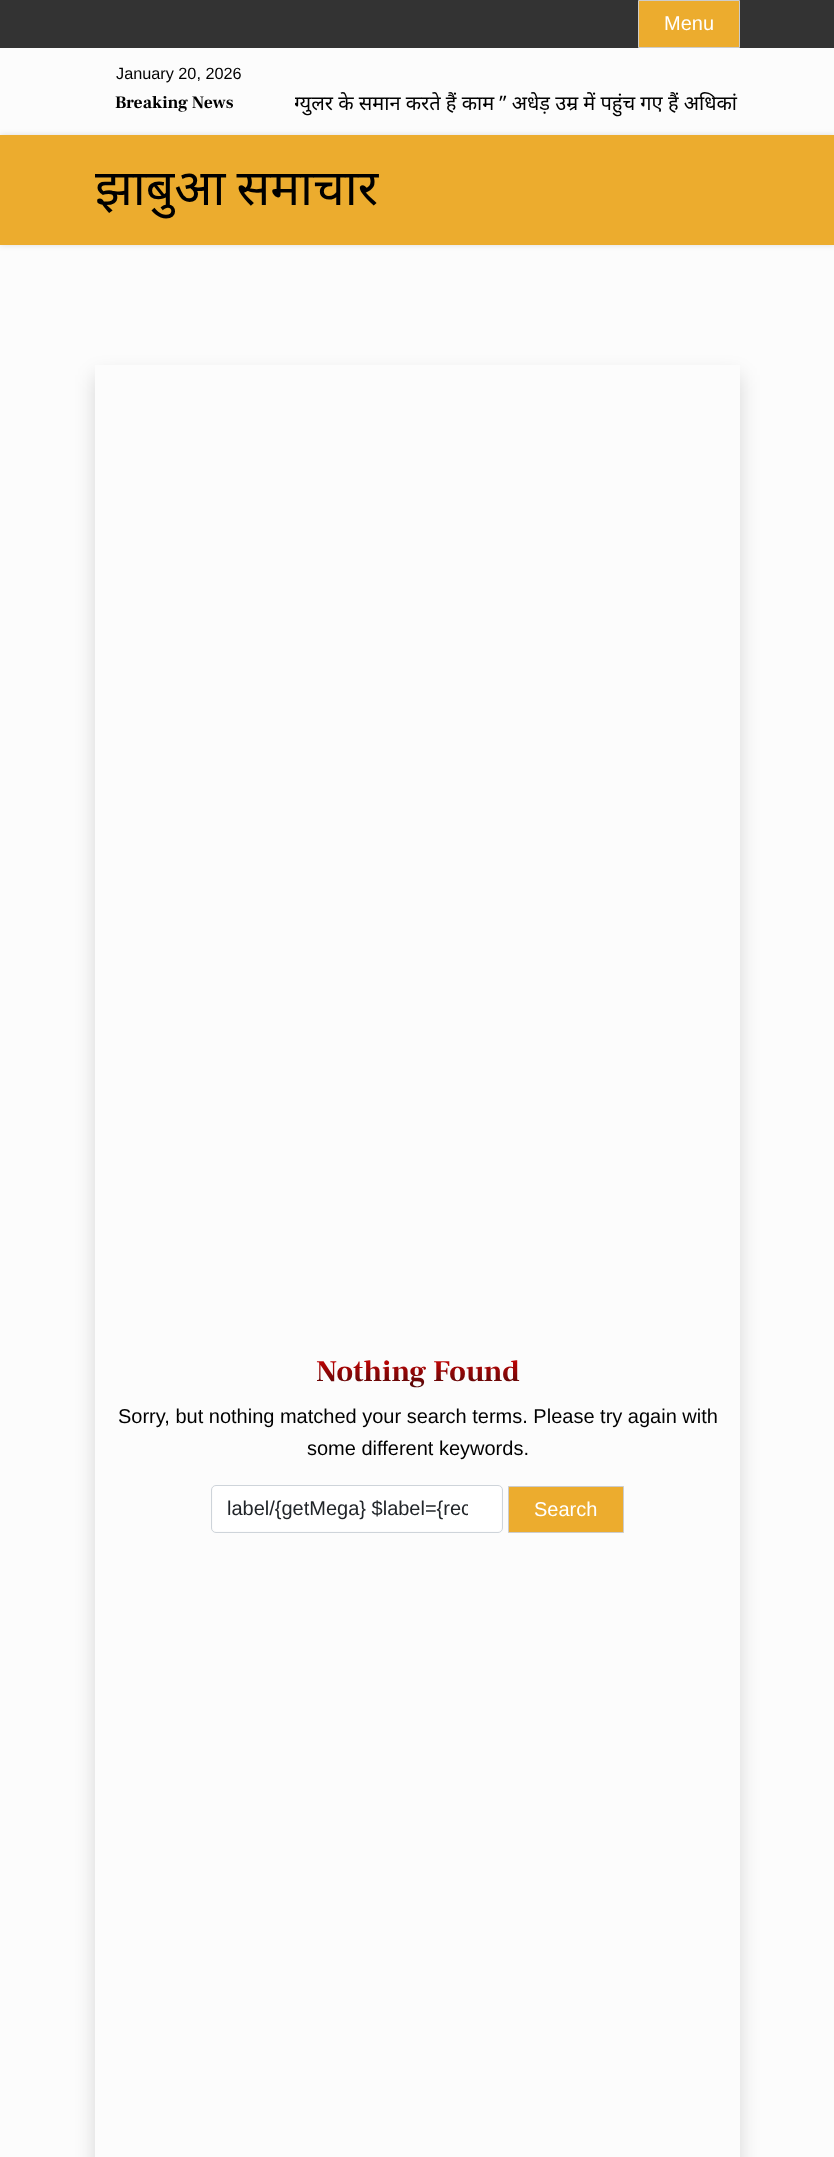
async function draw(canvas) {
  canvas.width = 834;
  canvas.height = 2157;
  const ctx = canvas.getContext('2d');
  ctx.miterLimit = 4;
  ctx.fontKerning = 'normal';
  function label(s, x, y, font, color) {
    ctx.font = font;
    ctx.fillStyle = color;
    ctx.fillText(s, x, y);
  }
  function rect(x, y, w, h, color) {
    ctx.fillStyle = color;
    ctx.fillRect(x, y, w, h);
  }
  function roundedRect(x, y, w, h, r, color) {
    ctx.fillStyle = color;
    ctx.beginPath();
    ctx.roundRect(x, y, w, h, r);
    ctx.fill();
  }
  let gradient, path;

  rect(0, 0, 834, 2157, '#fcfcfc');
  rect(0, 0, 834, 48, '#333');
  ctx.fillStyle = '#ecac2e';
  ctx.beginPath();
  ctx.rect(638.5, 0.5, 101, 47);
  ctx.fill();
  ctx.strokeStyle = '#ccc';
  ctx.stroke();
  label('Menu', 664, 30, '20px Liberation Sans', '#fff');
  label('January 20, 2026', 116, 79, '16.25px Liberation Sans', '#000');
  label('Breaking News', 115, 108, 'bold 17.5px Frank Ruhl Libre', '#000');
  ctx.save();
  ctx.beginPath();
  ctx.rect(295, 88, 445, 32);
  ctx.clip();
  label('ग्युलर के समान करते हैं काम ” अधेड़ उम्र में पहुंच गए हैं अधिकां', 294, 110, '20px Noto Sans', '#000');
  ctx.restore();
  ctx.fillStyle = '#0000001f';
  ctx.filter = 'blur(3px)';
  ctx.beginPath();
  ctx.rect(0, 135, 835, 110);
  ctx.fill();
  ctx.filter = 'none';
  rect(0, 135, 834, 110, '#ecac2e');
  ctx.wordSpacing = '-2px';
  label('झाबुआ समाचार', 95, 205, '50px Noto Sans', '#000');
  ctx.save();
  path = new Path2D('M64 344H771V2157H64ZM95 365H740V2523H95Z');
  ctx.clip(path, 'evenodd');
  ctx.fillStyle = '#00000026';
  ctx.filter = 'blur(10px)';
  ctx.beginPath();
  ctx.rect(95, 375, 645, 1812);
  ctx.fill();
  ctx.filter = 'none';
  ctx.restore();
  ctx.wordSpacing = '0px';
  ctx.font = 'bold 30px Frank Ruhl Libre';
  gradient = ctx.createLinearGradient(417, 1355, 417, 1391);
  gradient.addColorStop(0, '#d60303');
  gradient.addColorStop(1, '#410909');
  ctx.fillStyle = gradient;
  ctx.fillText('Nothing Found', 316, 1381);
  label('Sorry, but nothing matched your search terms. Please try again with', 118, 1423, '20px Liberation Sans', '#000');
  label('some different keywords.', 307, 1455, '20px Liberation Sans', '#000');
  roundedRect(213, 1486, 288, 45, 4, '#fff');
  ctx.beginPath();
  ctx.roundRect(211.5, 1485.5, 291, 47, 4.5);
  ctx.strokeStyle = '#ced4da';
  ctx.stroke();
  ctx.save();
  ctx.beginPath();
  ctx.rect(228, 1494, 240, 30);
  ctx.clip();
  label('label/{getMega} $label={rec', 227, 1515, '20px Liberation Sans', '#212529');
  ctx.restore();
  ctx.fillStyle = '#ecac2e';
  ctx.beginPath();
  ctx.rect(508.5, 1486.5, 115, 46);
  ctx.fill();
  ctx.strokeStyle = '#ccc';
  ctx.stroke();
  label('Search', 534, 1516, '20px Liberation Sans', '#fff');
}

draw(document.querySelector('canvas'));
